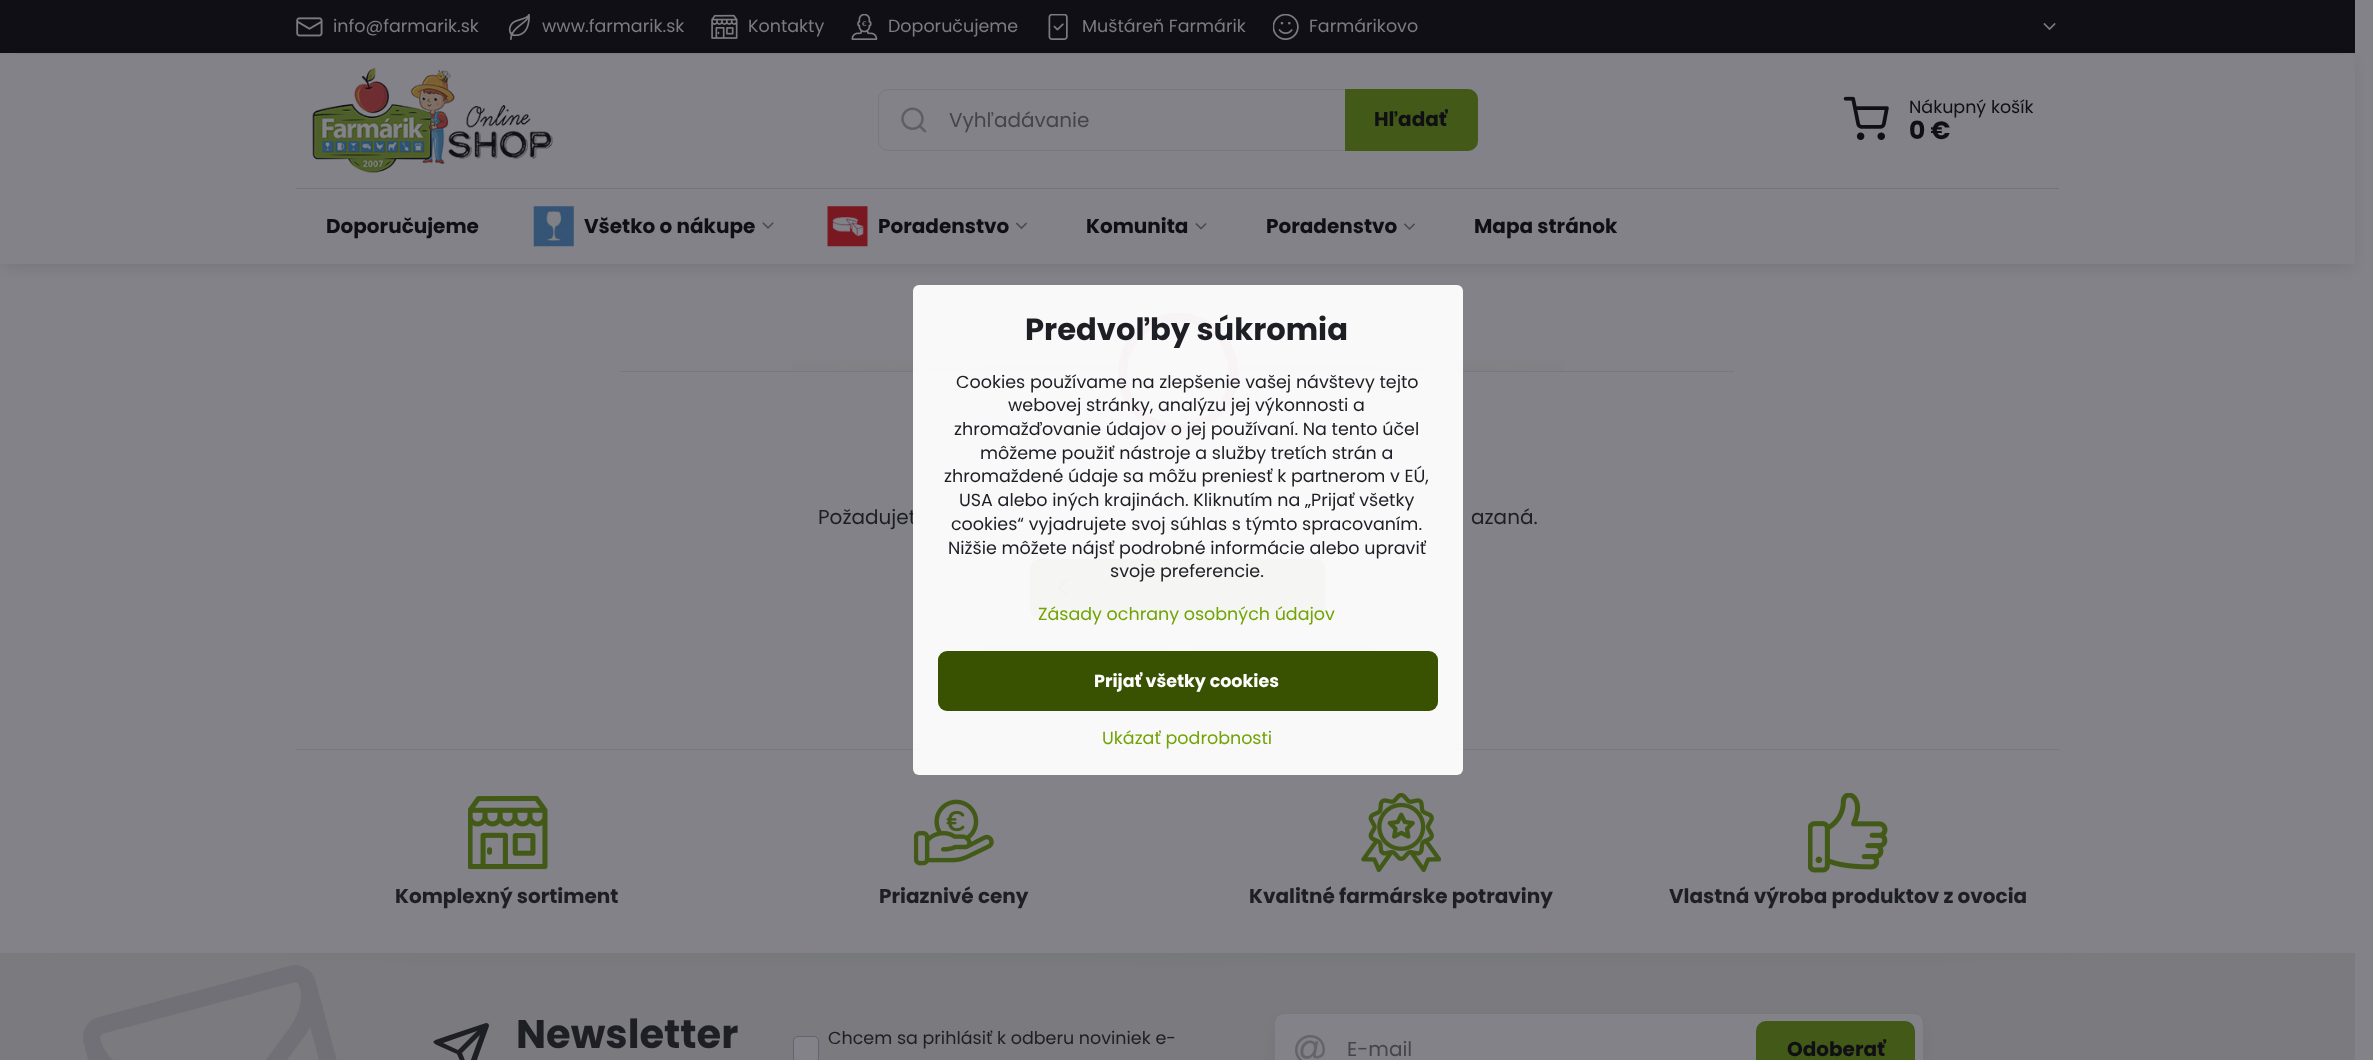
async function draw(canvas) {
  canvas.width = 2373;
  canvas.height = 1060;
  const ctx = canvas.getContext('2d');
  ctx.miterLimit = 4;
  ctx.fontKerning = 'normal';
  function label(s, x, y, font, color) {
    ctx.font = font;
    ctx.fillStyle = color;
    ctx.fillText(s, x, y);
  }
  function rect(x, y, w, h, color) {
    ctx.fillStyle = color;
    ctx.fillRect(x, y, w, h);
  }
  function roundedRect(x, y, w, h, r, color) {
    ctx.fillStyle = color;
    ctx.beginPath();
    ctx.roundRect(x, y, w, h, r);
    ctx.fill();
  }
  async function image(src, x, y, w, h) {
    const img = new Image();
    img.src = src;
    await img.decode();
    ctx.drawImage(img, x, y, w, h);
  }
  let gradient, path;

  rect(0, 0, 2373, 1060, '#828288');
  rect(0, 0, 2355, 53, '#0f0f15');
  await image('assets/img1.png', 296, 17, 27, 20);
  label('info@farmarik.sk', 333, 32, '17.5px Poppins', '#7b7b80');
  await image('assets/img2.png', 508, 14, 22, 26);
  label('www.farmarik.sk', 542, 32, '17.5px Poppins', '#7b7b80');
  await image('assets/img3.png', 711, 14, 27, 25);
  label('Kontakty', 748, 32, '17.5px Poppins', '#7b7b80');
  await image('assets/img4.png', 851, 14, 27, 26);
  label('Doporučujeme', 888, 32, '17.5px Poppins', '#7b7b80');
  await image('assets/img5.png', 1048, 14, 20, 26);
  label('Muštáreň Farmárik', 1082, 32, '17.5px Poppins', '#7b7b80');
  await image('assets/img6.png', 1273, 14, 26, 26);
  label('Farmárikovo', 1309, 32, '17.5px Poppins', '#7b7b80');
  await image('assets/img7.png', 2043, 23, 13, 7);
  ctx.fillStyle = '#0f0f1e26';
  ctx.filter = 'blur(7.5px)';
  ctx.beginPath();
  ctx.rect(5, 63, 2345, 201);
  ctx.fill();
  ctx.filter = 'none';
  rect(0, 55, 2355, 209, '#828288');
  await image('assets/img8.png', 312, 67, 241, 106);
  ctx.beginPath();
  ctx.roundRect(878.5, 89.5, 599, 61, 9.5);
  ctx.strokeStyle = '#77777c';
  ctx.stroke();
  await image('assets/img9.png', 901, 107, 26, 26);
  label('Vyhľadávanie', 949, 127, '20px Poppins', '#44444a');
  ctx.fillStyle = '#435917';
  ctx.beginPath();
  ctx.roundRect(1345, 89, 133, 62, [0, 10, 10, 0]);
  ctx.fill();
  label('Hľadať', 1374, 126, 'bold 20px Poppins', '#0f0f15');
  await image('assets/img10.png', 1843, 96, 46, 44);
  label('Nákupný košík', 1909, 113, '17.5px Poppins', '#0f0f15');
  label('0 €', 1909, 139, 'bold 25px Poppins', '#0f0f15');
  rect(296, 188, 1763, 1, '#737378');
  label('Doporučujeme', 326, 233, 'bold 20px Poppins', '#0f0f15');
  await image('assets/img11.png', 533, 206, 41, 41);
  label('Všetko o nákupe', 584, 233, 'bold 20px Poppins', '#0f0f15');
  await image('assets/img12.png', 762, 222, 12, 7);
  await image('assets/img13.png', 827, 206, 41, 41);
  label('Poradenstvo', 878, 233, 'bold 20px Poppins', '#0f0f15');
  await image('assets/img14.png', 1016, 222, 11, 7);
  label('Komunita', 1086, 233, 'bold 20px Poppins', '#0f0f15');
  await image('assets/img15.png', 1195, 223, 12, 7);
  label('Poradenstvo', 1266, 233, 'bold 20px Poppins', '#0f0f15');
  await image('assets/img16.png', 1404, 223, 11, 7);
  label('Mapa stránok', 1474, 233, 'bold 20px Poppins', '#0f0f15');
  rect(621, 371, 1113, 1, '#77777c');
  gradient = ctx.createRadialGradient(1178, 12508, 0, 1178, 12508, 944);
  gradient.addColorStop(0, '#7e7e82');
  gradient.addColorStop(0.7, '#828288');
  ctx.fillStyle = gradient;
  ctx.beginPath();
  ctx.rect(791, 360, 774, 11);
  ctx.save();
  ctx.clip();
  ctx.scale(1, 28 / 944);
  ctx.fillRect(0, 0, 2373, 35738);
  ctx.restore();
  ctx.fillStyle = '#828288';
  ctx.beginPath();
  ctx.arc(1178, 373, 55.5, 0, 2 * Math.PI);
  ctx.fill();
  ctx.strokeStyle = '#73263b';
  ctx.lineWidth = 9;
  ctx.stroke();
  label('Požadujet', 818, 524, '20px Poppins', '#1e1e25');
  label('azaná.', 1471, 524, '20px Poppins', '#1e1e25');
  roundedRect(1030, 559, 295, 60, 10, '#435917');
  await image('assets/img17.png', 1057, 578, 11, 19);
  roundedRect(979, 646, 196, 43, 9, '#7c7f7e');
  ctx.beginPath();
  ctx.roundRect(979.5, 646.5, 195, 42, 8.5);
  ctx.strokeStyle = '#43591717';
  ctx.lineWidth = 1;
  ctx.stroke();
  roundedRect(1185, 646, 191, 43, 9, '#7c7f7e');
  ctx.beginPath();
  ctx.roundRect(1185.5, 646.5, 190, 42, 8.5);
  ctx.stroke();
  rect(296, 749, 1763, 1, '#77777c');
  await image('assets/img18.png', 468, 795, 80, 75);
  label('Komplexný sortiment', 395, 903, 'bold 20px Poppins', '#1e1e25');
  await image('assets/img19.png', 914, 799, 80, 67);
  label('Priaznivé ceny', 879, 903, 'bold 20px Poppins', '#1e1e25');
  await image('assets/img20.png', 1361, 793, 80, 80);
  label('Kvalitné farmárske potraviny', 1249, 903, 'bold 20px Poppins', '#1e1e25');
  await image('assets/img21.png', 1808, 793, 80, 80);
  label('Vlastná výroba produktov z ovocia', 1669, 903, 'bold 20px Poppins', '#1e1e25');
  rect(0, 973, 2355, 87, '#7a7a7f');
  gradient = ctx.createRadialGradient(1178, 68003.36, 0, 1178, 68003.36, 1998);
  gradient.addColorStop(0, '#77787c');
  gradient.addColorStop(0.7, '#7a7a7f');
  ctx.fillStyle = gradient;
  ctx.beginPath();
  ctx.rect(0, 953, 2355, 20);
  ctx.save();
  ctx.clip();
  ctx.scale(1, 28 / 1998);
  ctx.fillRect(0, 0, 2373, 75639);
  ctx.restore();
  await image('assets/img22.png', 83, 965, 254, 95);
  ctx.fillStyle = '#1e1e25';
  path = new Path2D('M489 1026C489 1024 488 1023 486 1023L444 1037C437 1040 427 1041 439 1046L457 1054L465 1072C469 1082 471 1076 474 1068ZM458 1050L443 1043L477 1031ZM480 1035L468 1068L462 1053Z');
  ctx.fill(path);
  label('Newsletter', 516, 1048, 'bold 40px Poppins', '#1e1e25');
  ctx.fillStyle = '#828288';
  ctx.beginPath();
  ctx.roundRect(793.5, 1036.5, 25, 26, 4.5);
  ctx.fill();
  ctx.strokeStyle = '#626472';
  ctx.stroke();
  label('Chcem sa prihlásiť k odberu noviniek e-', 828, 1044, '17.5px Poppins', '#1e1e25');
  ctx.fillStyle = '#0f0f1e26';
  ctx.filter = 'blur(10px)';
  ctx.beginPath();
  ctx.rect(1284, 1028, 630, 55);
  ctx.fill();
  ctx.filter = 'none';
  ctx.fillStyle = '#828288';
  ctx.beginPath();
  ctx.roundRect(1274.5, 1013.5, 649, 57, 9.5);
  ctx.fill();
  ctx.strokeStyle = '#77777c';
  ctx.stroke();
  await image('assets/img23.png', 1295, 1035, 30, 25);
  label('E-mail', 1347, 1056, '20px Poppins', '#44444a');
  roundedRect(1756, 1021, 159, 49, 10, '#435917');
  label('Odoberať', 1787, 1056, 'bold 20px Poppins', '#0f0f15');
  roundedRect(913, 285, 550, 490, 6, '#fffffff2');
  label('Predvoľby súkromia', 1025, 340, 'bold 30.6px Poppins', '#1e1e25');
  label('Cookies používame na zlepšenie vašej návštevy tejto', 956, 388, '17.5px Poppins', '#1e1e25');
  label('webovej stránky, analýzu jej výkonnosti a', 1008, 411, '17.5px Poppins', '#1e1e25');
  label('zhromažďovanie údajov o jej používaní. Na tento účel', 954, 435, '17.5px Poppins', '#1e1e25');
  label('môžeme použiť nástroje a služby tretích strán a', 980, 459, '17.5px Poppins', '#1e1e25');
  label('zhromaždené údaje sa môžu preniesť k partnerom v EÚ,', 944, 482, '17.5px Poppins', '#1e1e25');
  label('USA alebo iných krajinách. Kliknutím na „Prijať všetky', 959, 506, '17.5px Poppins', '#1e1e25');
  label('cookies“ vyjadrujete svoj súhlas s týmto spracovaním.', 951, 530, '17.5px Poppins', '#1e1e25');
  label('Nižšie môžete nájsť podrobné informácie alebo upraviť', 948, 554, '17.5px Poppins', '#1e1e25');
  label('svoje preferencie.', 1110, 577, '17.5px Poppins', '#1e1e25');
  label('Zásady ochrany osobných údajov', 1038, 620, '17.5px Poppins', '#72a405');
  roundedRect(938, 651, 500, 60, 9, '#395202');
  label('Prijať všetky cookies', 1094, 687, 'bold 17.5px Poppins', '#fff');
  label('Ukázať podrobnosti', 1102, 744, '17.5px Poppins', '#72a405');
}

draw(document.querySelector('canvas'));
